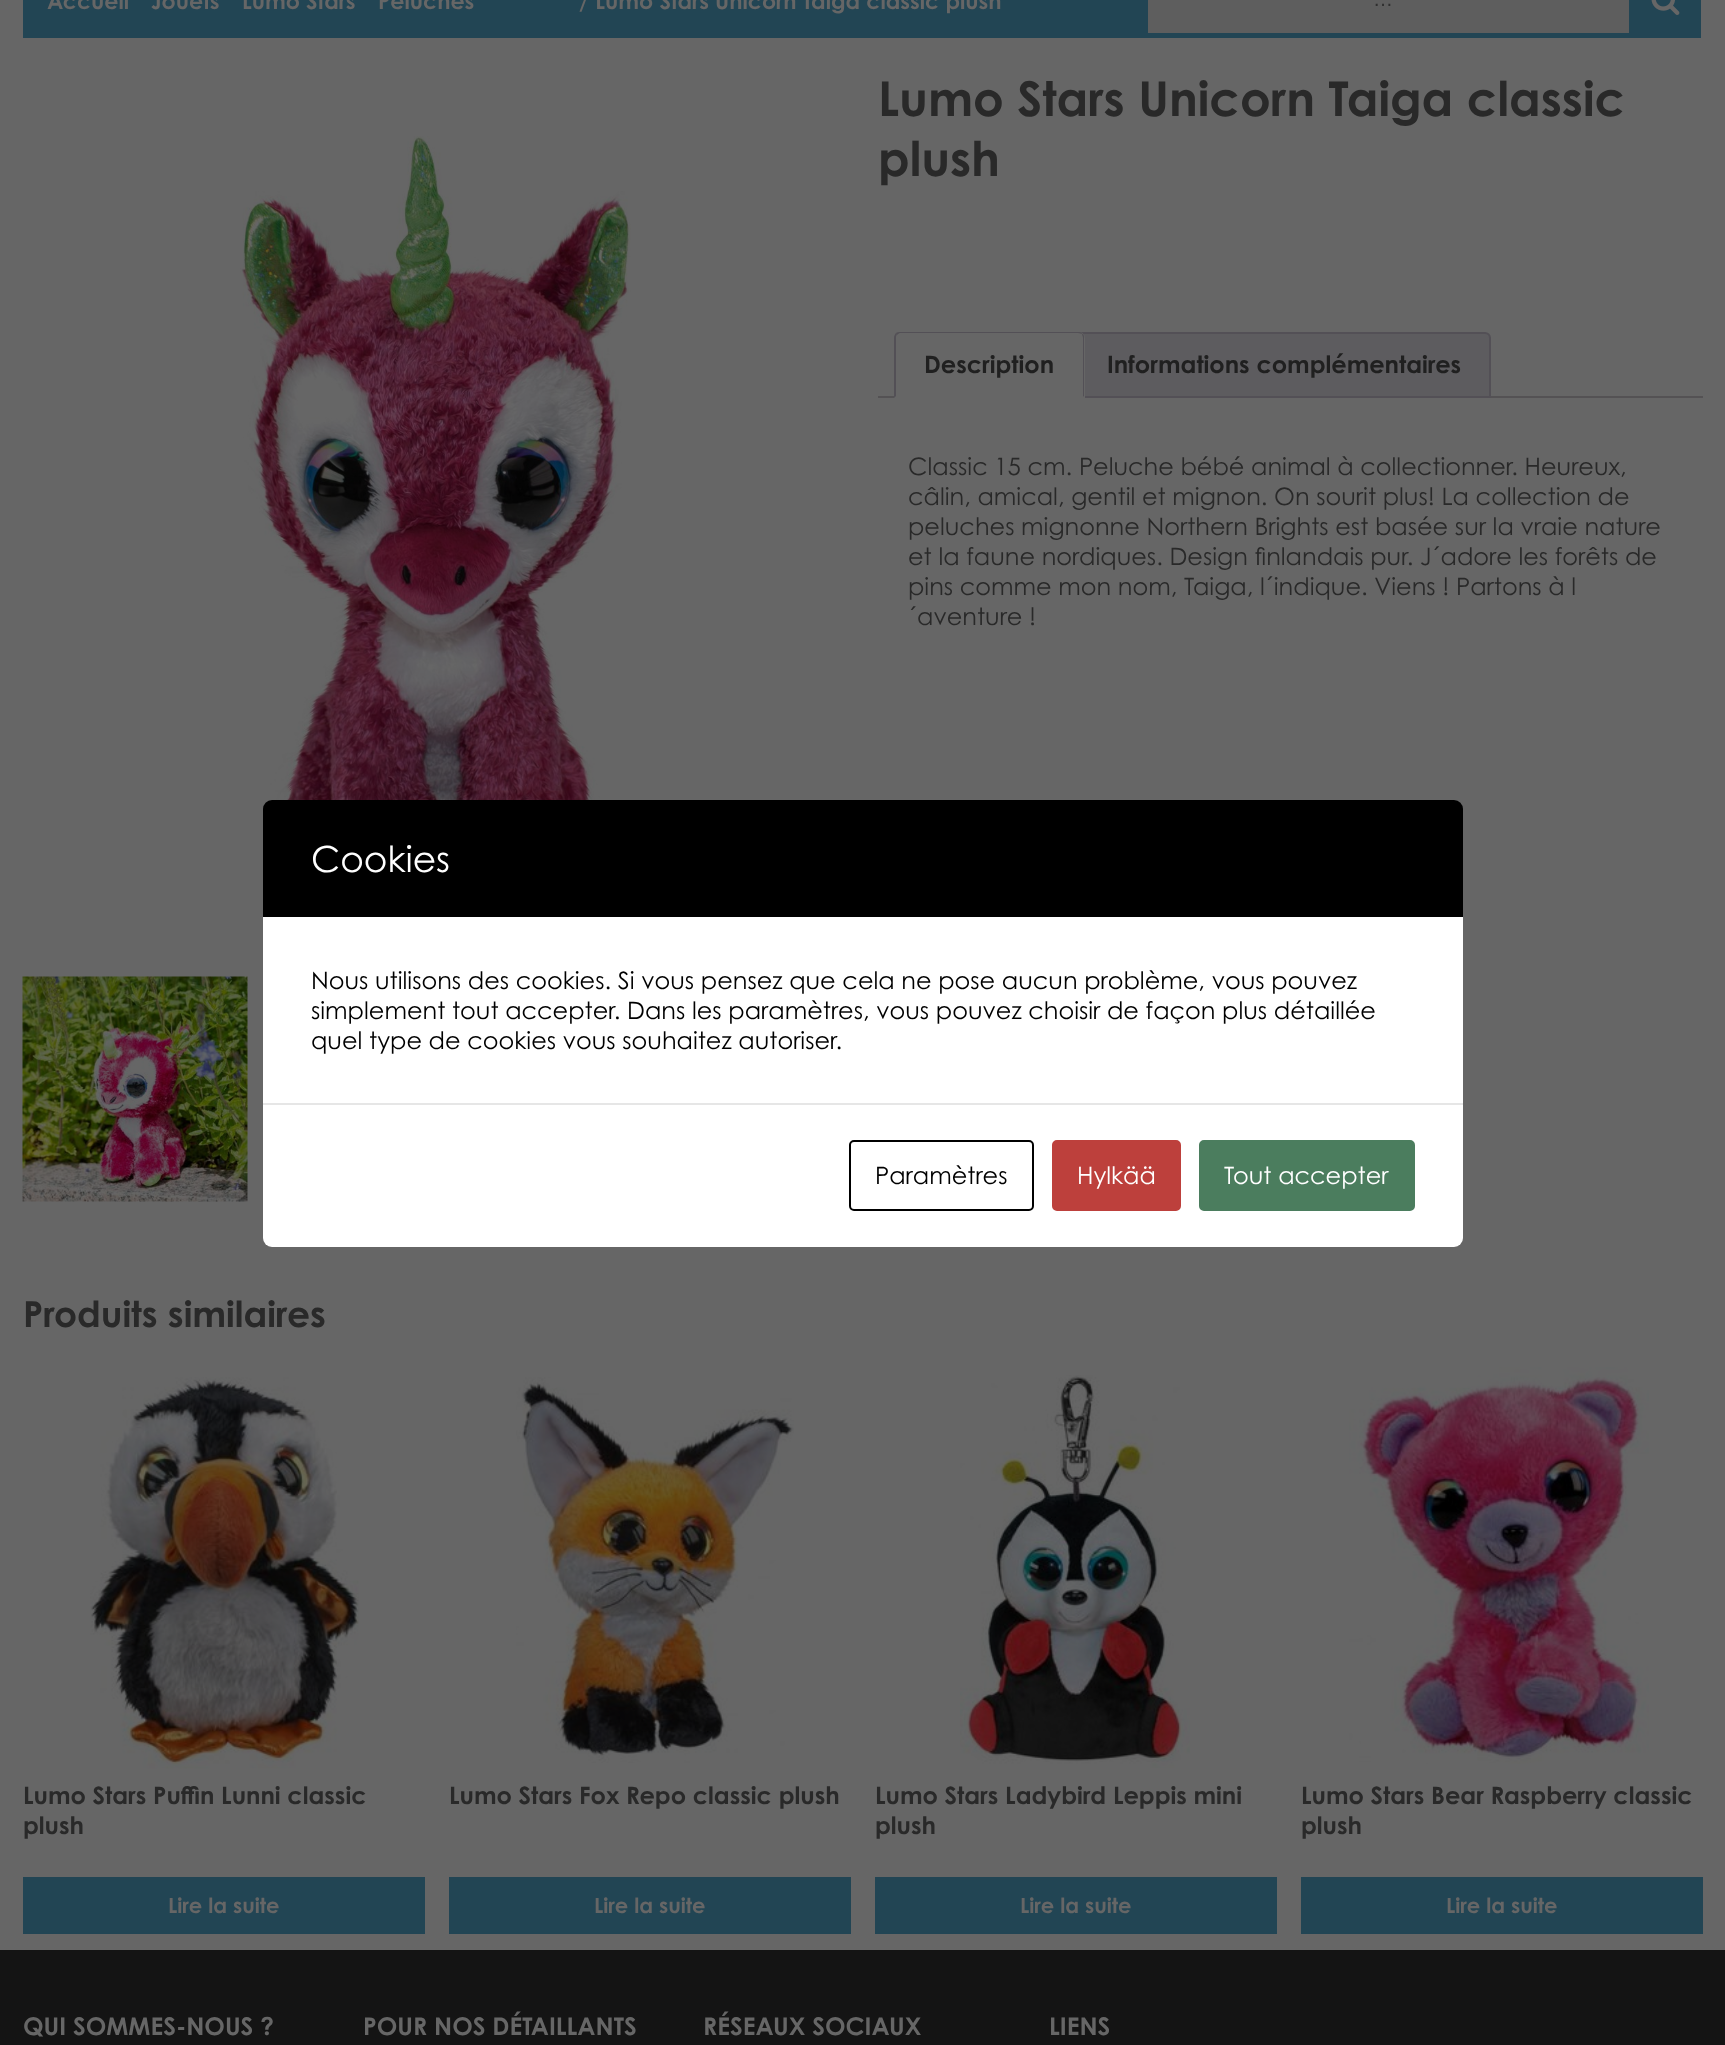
async function draw(canvas) {
  canvas.width = 1725;
  canvas.height = 2045;
  const ctx = canvas.getContext('2d');
  ctx.miterLimit = 4;
  ctx.fontKerning = 'normal';
  function label(s, x, y, font, color) {
    ctx.font = font;
    ctx.fillStyle = color;
    ctx.fillText(s, x, y);
  }
  function rect(x, y, w, h, color) {
    ctx.fillStyle = color;
    ctx.fillRect(x, y, w, h);
  }
  async function image(src, x, y, w, h) {
    const img = new Image();
    img.src = src;
    await img.decode();
    ctx.drawImage(img, x, y, w, h);
  }
  let path;

  rect(0, 0, 1725, 2045, '#666');
  rect(23, 0, 1120, 38, '#224554');
  label('Accueil', 47, 9, 'bold 22.1px Century Gothic', '#666');
  label('Jouets', 151, 9, 'bold 22.1px Century Gothic', '#666');
  label('Lumo Stars', 242, 9, 'bold 22.1px Century Gothic', '#666');
  label('Peluches', 378, 9, 'bold 22.1px Century Gothic', '#666');
  label('/ Lumo Stars Unicorn Taiga classic plush', 579, 9, 'bold 22.1px Century Gothic', '#666');
  rect(1148, 0, 481, 33, '#5e5e5e');
  rect(1143, 33, 486, 5, '#224554');
  rect(1143, 0, 5, 38, '#224554');
  label('…', 1373, 6, '20px Liberation Sans', '#2f2f2f');
  rect(1629, 0, 72, 38, '#224554');
  await image('assets/img1.png', 1651, 0, 29, 15);
  await image('assets/img2.png', 240, 136, 391, 783);
  await image('assets/img3.png', 22, 976, 226, 226);
  label('Lumo Stars Unicorn Taiga classic', 878, 116, 'bold 48px Century Gothic', '#292929');
  label('plush', 878, 176, 'bold 48px Century Gothic', '#292929');
  rect(878, 396, 825, 2, '#545254');
  ctx.fillStyle = '#5d5c5f';
  ctx.beginPath();
  ctx.roundRect(1078, 333, 412, 64, [5, 5, 0, 0]);
  ctx.fill();
  ctx.strokeStyle = '#535056';
  ctx.lineWidth = 2;
  ctx.stroke();
  ctx.fillStyle = '#666';
  ctx.beginPath();
  ctx.roundRect(894, 332, 191, 66, [6, 6, 0, 0]);
  ctx.fill();
  ctx.fillStyle = '#535056';
  path = new Path2D('M900 332C899 332 897 332 896 333L897 335C898 334 899 333 900 333H1078C1080 333 1081 334 1082 334C1082 332 1080 332 1078 332Z');
  ctx.fill(path);
  path = new Path2D('M1084 397V338C1084 336 1084 334 1082 334C1082 335 1083 336 1083 338V396Z');
  ctx.fill(path);
  ctx.fillStyle = '#666';
  path = new Path2D('M1084 398H894L896 396H1083Z');
  ctx.fill(path);
  ctx.fillStyle = '#535056';
  path = new Path2D('M894 398L896 396V338C896 337 896 335 897 335L896 333C895 334 894 336 894 338Z');
  ctx.fill(path);
  label('Description', 924, 373, 'bold 24px Century Gothic', '#202020');
  label('Informations complémentaires', 1107, 373, 'bold 24px Century Gothic', '#202020');
  label('Classic 15 cm. Peluche bébé animal à collectionner. Heureux,', 908, 475, '24px Century Gothic', '#292929');
  label('câlin, amical, gentil et mignon. On sourit plus! La collection de', 908, 505, '24px Century Gothic', '#292929');
  label('peluches mignonne Northern Brights est basée sur la vraie nature', 908, 535, '24px Century Gothic', '#292929');
  label('et la faune nordiques. Design finlandais pur. J´adore les forêts de', 908, 565, '24px Century Gothic', '#292929');
  label('pins comme mon nom, Taiga, l´indique. Viens ! Partons à l', 908, 595, '24px Century Gothic', '#292929');
  label('´aventure !', 908, 625, '24px Century Gothic', '#292929');
  label('Produits similaires', 23, 1327, 'bold 36px Century Gothic', '#292929');
  await image('assets/img4.png', 90, 1377, 269, 392);
  label('Lumo Stars Puffin Lunni classic', 23, 1804, 'bold 24px Century Gothic', '#292929');
  label('plush', 23, 1834, 'bold 24px Century Gothic', '#292929');
  rect(23, 1877, 402, 57, '#224554');
  label('Lire la suite', 168, 1913, 'bold 21px Century Gothic', '#666');
  await image('assets/img5.png', 516, 1377, 278, 386);
  label('Lumo Stars Fox Repo classic plush', 449, 1804, 'bold 24px Century Gothic', '#292929');
  rect(449, 1877, 402, 57, '#224554');
  label('Lire la suite', 594, 1913, 'bold 21px Century Gothic', '#666');
  await image('assets/img6.png', 960, 1375, 230, 393);
  label('Lumo Stars Ladybird Leppis mini', 875, 1804, 'bold 24px Century Gothic', '#292929');
  label('plush', 875, 1834, 'bold 24px Century Gothic', '#292929');
  rect(875, 1877, 402, 57, '#224554');
  label('Lire la suite', 1020, 1913, 'bold 21px Century Gothic', '#666');
  await image('assets/img7.png', 1349, 1367, 300, 397);
  label('Lumo Stars Bear Raspberry classic', 1301, 1804, 'bold 24px Century Gothic', '#292929');
  label('plush', 1301, 1834, 'bold 24px Century Gothic', '#292929');
  rect(1301, 1877, 402, 57, '#224554');
  label('Lire la suite', 1446, 1913, 'bold 21px Century Gothic', '#666');
  ctx.fillStyle = '#000';
  ctx.beginPath();
  ctx.roundRect(263, 800, 1200, 117, [9, 9, 0, 0]);
  ctx.fill();
  label('Cookies', 311, 872, '36px Century Gothic', '#fff');
  rect(263, 917, 1200, 186, '#fff');
  label('Nous utilisons des cookies. Si vous pensez que cela ne pose aucun problème, vous pouvez', 311, 989, '24px Century Gothic', '#000');
  label('simplement tout accepter. Dans les paramètres, vous pouvez choisir de façon plus détaillée', 311, 1019, '24px Century Gothic', '#000');
  label('quel type de cookies vous souhaitez autoriser.', 311, 1049, '24px Century Gothic', '#000');
  ctx.fillStyle = '#fff';
  ctx.beginPath();
  ctx.roundRect(263, 1103, 1200, 144, [0, 0, 9, 9]);
  ctx.fill();
  rect(263, 1103, 1200, 2, '#e6e6e6');
  ctx.beginPath();
  ctx.roundRect(850, 1141, 183, 69, 4);
  ctx.strokeStyle = '#000';
  ctx.stroke();
  label('Paramètres', 875, 1184, '24px Century Gothic', '#000');
  ctx.fillStyle = '#bd403c';
  ctx.beginPath();
  ctx.roundRect(1053, 1141, 127, 69, 4);
  ctx.fill();
  ctx.strokeStyle = '#bd403c';
  ctx.stroke();
  label('Hylkää', 1077, 1184, '24px Century Gothic', '#fff');
  ctx.fillStyle = '#4b7d5e';
  ctx.beginPath();
  ctx.roundRect(1200, 1141, 214, 69, 4);
  ctx.fill();
  ctx.strokeStyle = '#4b7d5e';
  ctx.stroke();
  label('Tout accepter', 1224, 1184, '24px Century Gothic', '#fff');
  rect(0, 1950, 1725, 95, '#141414');
  label('QUI SOMMES-NOUS ?', 23, 2035, 'bold 24.5px Century Gothic', '#666');
  label('POUR NOS DÉTAILLANTS', 363, 2035, 'bold 24.5px Century Gothic', '#666');
  label('RÉSEAUX SOCIAUX', 703, 2035, 'bold 24.5px Century Gothic', '#666');
  label('LIENS', 1049, 2035, 'bold 24.5px Century Gothic', '#666');
}

draw(document.querySelector('canvas'));
